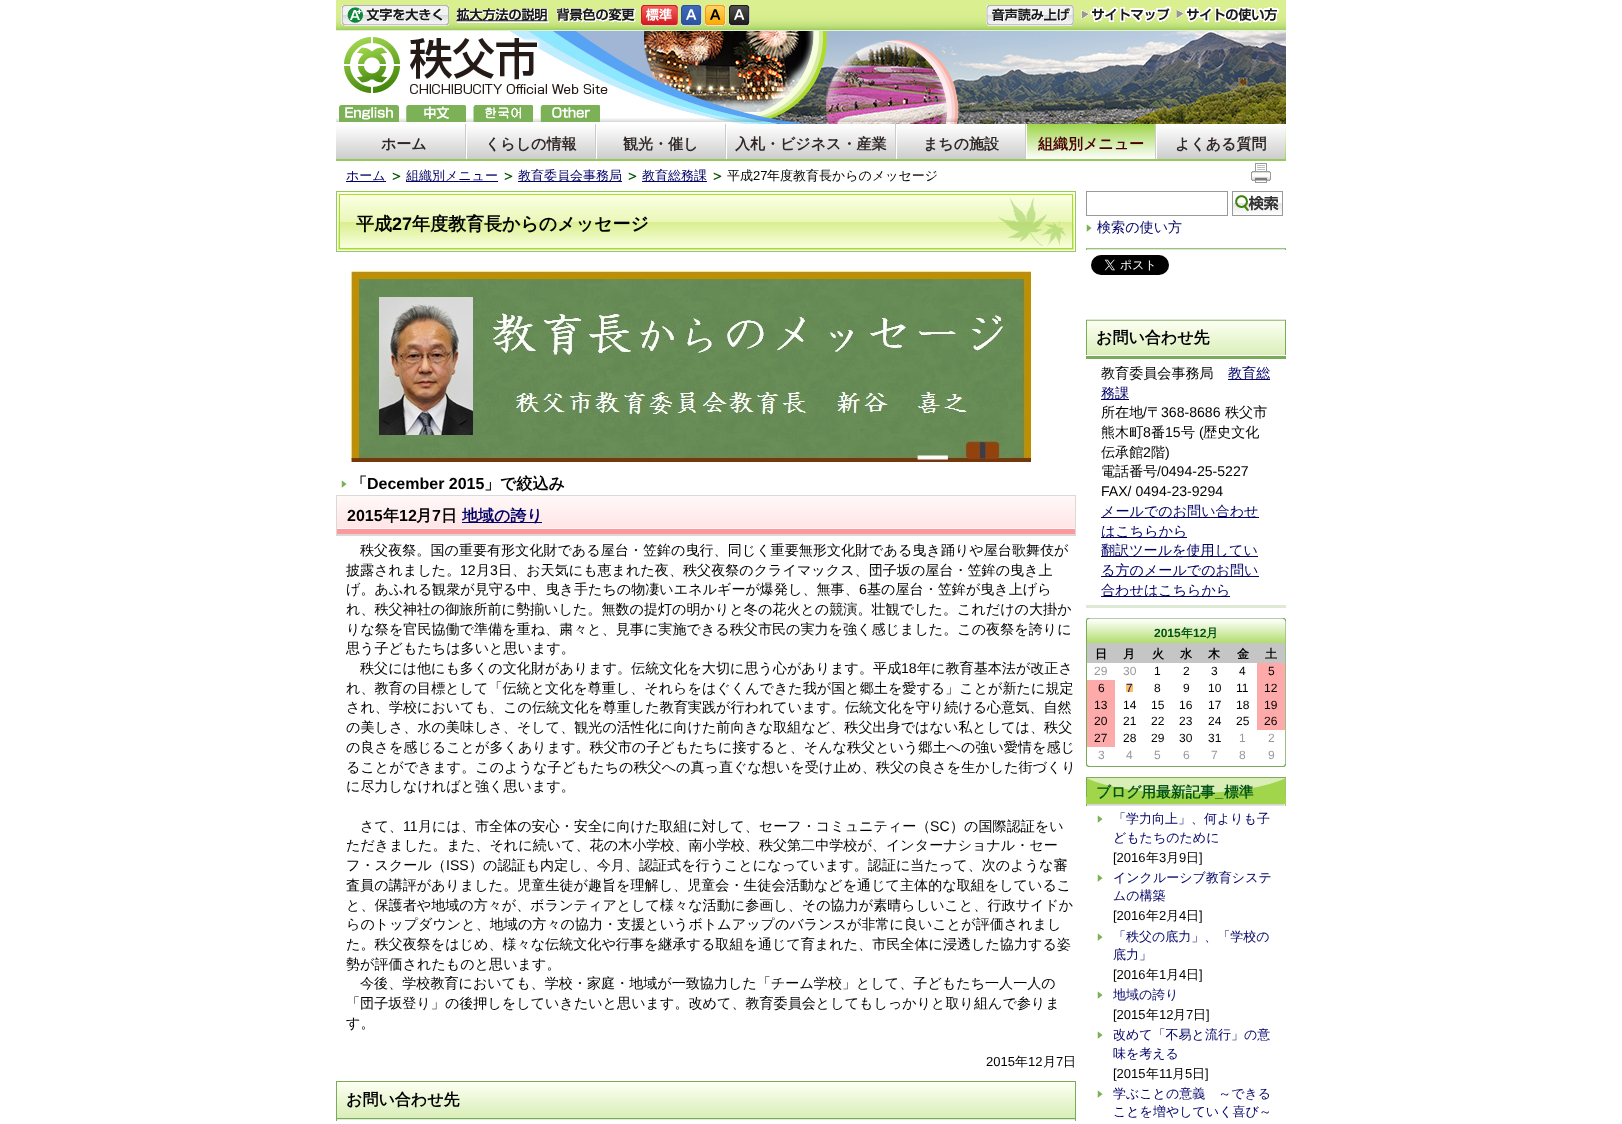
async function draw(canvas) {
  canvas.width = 1622;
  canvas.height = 1124;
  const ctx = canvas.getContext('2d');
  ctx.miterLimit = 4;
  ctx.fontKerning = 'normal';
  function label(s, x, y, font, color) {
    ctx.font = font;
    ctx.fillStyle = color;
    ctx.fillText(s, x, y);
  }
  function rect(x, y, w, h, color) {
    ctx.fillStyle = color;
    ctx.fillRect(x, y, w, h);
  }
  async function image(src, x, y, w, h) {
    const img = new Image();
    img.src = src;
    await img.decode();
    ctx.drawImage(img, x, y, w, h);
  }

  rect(0, 0, 1622, 1124, '#fff');
  await image('assets/img1.png', 336, 31, 950, 93);
  await image('assets/img2.png', 336, 0, 950, 31);
  await image('assets/img3.png', 341, 5, 108, 21);
  await image('assets/img4.png', 456, 8, 93, 15);
  await image('assets/img5.png', 556, 8, 80, 14);
  await image('assets/img6.png', 641, 5, 37, 21);
  await image('assets/img7.png', 681, 5, 21, 21);
  await image('assets/img8.png', 705, 5, 21, 21);
  await image('assets/img9.png', 729, 5, 21, 21);
  await image('assets/img10.png', 986, 5, 88, 21);
  await image('assets/img11.png', 1081, 6, 90, 16);
  await image('assets/img12.png', 1176, 7, 103, 16);
  await image('assets/img13.png', 344, 37, 264, 57);
  await image('assets/img14.png', 339, 105, 60, 17);
  await image('assets/img15.png', 406, 105, 60, 17);
  await image('assets/img16.png', 473, 105, 60, 17);
  await image('assets/img17.png', 540, 105, 60, 17);
  await image('assets/img18.png', 336, 124, 950, 37);
  await image('assets/img19.png', 336, 126, 129, 33);
  label('ホーム', 381, 149, 'bold 15px WenQuanYi Zen Hei', '#2f2725');
  await image('assets/img20.png', 467, 126, 128, 33);
  label('くらしの情報', 485, 149, 'bold 15px WenQuanYi Zen Hei', '#2f2725');
  await image('assets/img20.png', 597, 126, 128, 33);
  label('観光・催し', 623, 149, 'bold 15px WenQuanYi Zen Hei', '#2f2725');
  await image('assets/img21.png', 727, 126, 168, 33);
  label('入札・ビジネス・産業', 735, 149, 'bold 15px WenQuanYi Zen Hei', '#2f2725');
  await image('assets/img20.png', 897, 126, 128, 33);
  label('まちの施設', 923, 149, 'bold 15px WenQuanYi Zen Hei', '#2f2725');
  await image('assets/img22.png', 1027, 124, 128, 35);
  label('組織別メニュー', 1038, 149, 'bold 15px WenQuanYi Zen Hei', '#4a0003');
  await image('assets/img20.png', 1157, 126, 128, 33);
  label('よくある質問', 1175, 149, 'bold 15px WenQuanYi Zen Hei', '#2f2725');
  rect(346, 181, 40, 1, '#006');
  label('ホーム', 346, 180, '500 13px WenQuanYi Zen Hei', '#006');
  await image('assets/img23.png', 392, 172, 9, 8);
  rect(406, 181, 92, 1, '#006');
  label('組織別メニュー', 406, 180, '500 13px WenQuanYi Zen Hei', '#006');
  await image('assets/img23.png', 504, 172, 9, 8);
  rect(518, 181, 104, 1, '#006');
  label('教育委員会事務局', 518, 180, '500 13px WenQuanYi Zen Hei', '#006');
  await image('assets/img23.png', 628, 172, 9, 8);
  rect(642, 181, 65, 1, '#006');
  label('教育総務課', 642, 180, '500 13px WenQuanYi Zen Hei', '#006');
  await image('assets/img23.png', 713, 172, 9, 8);
  label('平成', 727, 180, '500 13px WenQuanYi Zen Hei', '#000');
  label('27', 753, 180, '13px Liberation Sans', '#000');
  label('年度教育長からのメッセージ', 767, 180, '500 13px WenQuanYi Zen Hei', '#000');
  await image('assets/img24.png', 1251, 163, 20, 20);
  await image('assets/img25.png', 336, 191, 740, 4);
  await image('assets/img26.png', 336, 195, 740, 57);
  await image('assets/img27.png', 337, 197, 738, 55);
  label('平成', 356, 230, 'bold 18px WenQuanYi Zen Hei', '#000');
  label('27', 392, 230, 'bold 18px Liberation Sans', '#000');
  label('年度教育長からのメッセージ', 412, 230, 'bold 18px WenQuanYi Zen Hei', '#000');
  await image('assets/img28.png', 351, 271, 680, 191);
  await image('assets/img29.png', 341, 480, 6, 8);
  label('「', 351, 489, 'bold 16px WenQuanYi Zen Hei', '#000');
  label('December 2015', 367, 489, 'bold 16px Liberation Sans', '#000');
  label('」で絞込み', 484, 489, 'bold 16px WenQuanYi Zen Hei', '#000');
  await image('assets/img30.png', 337, 496, 738, 38);
  rect(336, 495, 740, 1, '#d9d9d9');
  rect(1075, 495, 1, 41, '#d9d9d9');
  rect(336, 534, 740, 2, '#d9d9d9');
  rect(336, 495, 1, 41, '#d9d9d9');
  label('2015', 347, 521, 'bold 16px Liberation Sans', '#000');
  label('年', 383, 521, 'bold 16px WenQuanYi Zen Hei', '#000');
  label('12', 399, 521, 'bold 16px Liberation Sans', '#000');
  label('月', 416, 521, 'bold 16px WenQuanYi Zen Hei', '#000');
  label('7', 432, 521, 'bold 16px Liberation Sans', '#000');
  label('日', 441, 521, 'bold 16px WenQuanYi Zen Hei', '#000');
  rect(462, 522, 80, 1, '#006');
  label('地域の誇り', 462, 521, 'bold 16px WenQuanYi Zen Hei', '#006');
  label('秩父夜祭。国の重要有形文化財である屋台・笠鉾の曳行、同じく重要無形文化財である曳き踊りや屋台歌舞伎が', 360, 555, '500 14.08px WenQuanYi Zen Hei', '#000');
  label('披露されました。', 346, 575, '500 14.08px WenQuanYi Zen Hei', '#000');
  label('12', 460, 575, '14.08px Liberation Sans', '#000');
  label('月', 476, 575, '500 14.08px WenQuanYi Zen Hei', '#000');
  label('3', 490, 575, '14.08px Liberation Sans', '#000');
  label('日、お天気にも恵まれた夜、秩父夜祭のクライマックス、団子坂の屋台・笠鉾の曳き上', 498, 575, '500 14.08px WenQuanYi Zen Hei', '#000');
  label('げ。あふれる観衆が見守る中、曳き手たちの物凄いエネルギーが爆発し、無事、', 346, 594, '500 14.08px WenQuanYi Zen Hei', '#000');
  label('6', 859, 594, '14.08px Liberation Sans', '#000');
  label('基の屋台・笠鉾が曳き上げら', 867, 594, '500 14.08px WenQuanYi Zen Hei', '#000');
  label('れ、秩父神社の御旅所前に勢揃いした。無数の提灯の明かりと冬の花火との競演。壮観でした。これだけの大掛か', 346, 614, '500 14.08px WenQuanYi Zen Hei', '#000');
  label('りな祭を官民協働で準備を重ね、粛々と、見事に実施できる秩父市民の実力を強く感じました。この夜祭を誇りに', 346, 634, '500 14.08px WenQuanYi Zen Hei', '#000');
  label('思う子どもたちは多いと思います。', 346, 653, '500 14.08px WenQuanYi Zen Hei', '#000');
  label('秩父には他にも多くの文化財があります。伝統文化を大切に思う心があります。平成', 360, 673, '500 14.08px WenQuanYi Zen Hei', '#000');
  label('18', 901, 673, '14.08px Liberation Sans', '#000');
  label('年に教育基本法が改正さ', 917, 673, '500 14.08px WenQuanYi Zen Hei', '#000');
  label('れ、教育の目標として「伝統と文化を尊重し、それらをはぐくんできた我が国と郷土を愛する」ことが新たに規定', 346, 693, '500 14.08px WenQuanYi Zen Hei', '#000');
  label('され、学校においても、この伝統文化を尊重した教育実践が行われています。伝統文化を守り続ける心意気、自然', 346, 712, '500 14.08px WenQuanYi Zen Hei', '#000');
  label('の美しさ、水の美味しさ、そして、観光の活性化に向けた前向きな取組など、秩父出身ではない私としては、秩父', 346, 732, '500 14.08px WenQuanYi Zen Hei', '#000');
  label('の良さを感じることが多くあります。秩父市の子どもたちに接すると、そんな秩父という郷土への強い愛情を感じ', 346, 752, '500 14.08px WenQuanYi Zen Hei', '#000');
  label('ることができます。このような子どもたちの秩父への真っ直ぐな想いを受け止め、秩父の良さを生かした街づくり', 346, 772, '500 14.08px WenQuanYi Zen Hei', '#000');
  label('に尽力しなければと強く思います。', 346, 791, '500 14.08px WenQuanYi Zen Hei', '#000');
  label('さて、', 360, 831, '500 14.08px WenQuanYi Zen Hei', '#000');
  label('11', 403, 831, '14.08px Liberation Sans', '#000');
  label('月には、市全体の安心・安全に向けた取組に対して、セーフ・コミュニティー（', 418, 831, '500 14.08px WenQuanYi Zen Hei', '#000');
  label('SC', 930, 831, '14.08px Liberation Sans', '#000');
  label('）の国際認証をい', 950, 831, '500 14.08px WenQuanYi Zen Hei', '#000');
  label('ただきました。また、それに続いて、花の木小学校、南小学校、秩父第二中学校が、インターナショナル・セー', 346, 850, '500 14.08px WenQuanYi Zen Hei', '#000');
  label('フ・スクール（', 346, 870, '500 14.08px WenQuanYi Zen Hei', '#000');
  label('ISS', 446, 870, '14.08px Liberation Sans', '#000');
  label('）の認証も内定し、今月、認証式を行うことになっています。認証に当たって、次のような審', 469, 870, '500 14.08px WenQuanYi Zen Hei', '#000');
  label('査員の講評がありました。児童生徒が趣旨を理解し、児童会・生徒会活動などを通じて主体的な取組をしているこ', 346, 890, '500 14.08px WenQuanYi Zen Hei', '#000');
  label('と、保護者や地域の方々が、ボランティアとして様々な活動に参画し、その協力が素晴らしいこと、行政サイドか', 346, 910, '500 14.08px WenQuanYi Zen Hei', '#000');
  label('らのトップダウンと、地域の方々の協力・支援というボトムアップのバランスが非常に良いことが評価されまし', 346, 929, '500 14.08px WenQuanYi Zen Hei', '#000');
  label('た。秩父夜祭をはじめ、様々な伝統文化や行事を継承する取組を通じて育まれた、市民全体に浸透した協力する姿', 346, 949, '500 14.08px WenQuanYi Zen Hei', '#000');
  label('勢が評価されたものと思います。', 346, 969, '500 14.08px WenQuanYi Zen Hei', '#000');
  label('今後、学校教育においても、学校・家庭・地域が一致協力した「チーム学校」として、子どもたち一人一人の', 360, 988, '500 14.08px WenQuanYi Zen Hei', '#000');
  label('「団子坂登り」の後押しをしていきたいと思います。改めて、教育委員会としてもしっかりと取り組んで参りま', 346, 1008, '500 14.08px WenQuanYi Zen Hei', '#000');
  label('す。', 346, 1028, '500 14.08px WenQuanYi Zen Hei', '#000');
  label('2015', 986, 1066, '13px Liberation Sans', '#000');
  label('年', 1015, 1066, '500 13px WenQuanYi Zen Hei', '#000');
  label('12', 1028, 1066, '13px Liberation Sans', '#000');
  label('月', 1043, 1066, '500 13px WenQuanYi Zen Hei', '#000');
  label('7', 1056, 1066, '13px Liberation Sans', '#000');
  label('日', 1063, 1066, '500 13px WenQuanYi Zen Hei', '#000');
  await image('assets/img31.png', 336, 1081, 740, 36);
  label('お問い合わせ先', 346, 1105, 'bold 16px WenQuanYi Zen Hei', '#000');
  await image('assets/img32.png', 336, 1117, 740, 4);
  ctx.strokeStyle = '#999';
  ctx.strokeRect(1086.5, 191.5, 141, 24);
  await image('assets/img33.png', 1232, 191, 51, 25);
  await image('assets/img29.png', 1086, 224, 6, 8);
  label('検索の使い方', 1097, 232, '500 14.08px WenQuanYi Zen Hei', '#006');
  await image('assets/img34.png', 1086, 248, 200, 2);
  await image('assets/img35.png', 1091, 255, 78, 20);
  await image('assets/img36.png', 1086, 319, 200, 36);
  label('お問い合わせ先', 1096, 343, 'bold 16px WenQuanYi Zen Hei', '#000');
  rect(1086, 356, 200, 3, '#79ab5a');
  label('教育委員会事務局', 1101, 378, '500 14.08px WenQuanYi Zen Hei', '#000');
  rect(1228, 379, 42, 1, '#006');
  label('教育総', 1228, 378, '500 14.08px WenQuanYi Zen Hei', '#006');
  rect(1101, 399, 28, 1, '#006');
  label('務課', 1101, 398, '500 14.08px WenQuanYi Zen Hei', '#006');
  label('所在地', 1101, 417, '500 14.08px WenQuanYi Zen Hei', '#000');
  label('/', 1143, 417, '14.08px Liberation Sans', '#000');
  label('〒', 1147, 417, '500 14.08px WenQuanYi Zen Hei', '#000');
  label('368-8686', 1161, 417, '14.08px Liberation Sans', '#000');
  label('秩父市', 1225, 417, '500 14.08px WenQuanYi Zen Hei', '#000');
  label('熊木町', 1101, 437, '500 14.08px WenQuanYi Zen Hei', '#000');
  label('8', 1143, 437, '14.08px Liberation Sans', '#000');
  label('番', 1151, 437, '500 14.08px WenQuanYi Zen Hei', '#000');
  label('15', 1165, 437, '14.08px Liberation Sans', '#000');
  label('号', 1181, 437, '500 14.08px WenQuanYi Zen Hei', '#000');
  label('(', 1199, 437, '14.08px Liberation Sans', '#000');
  label('歴史文化', 1203, 437, '500 14.08px WenQuanYi Zen Hei', '#000');
  label('伝承館', 1101, 457, '500 14.08px WenQuanYi Zen Hei', '#000');
  label('2', 1143, 457, '14.08px Liberation Sans', '#000');
  label('階', 1151, 457, '500 14.08px WenQuanYi Zen Hei', '#000');
  label(')', 1165, 457, '14.08px Liberation Sans', '#000');
  label('電話番号', 1101, 476, '500 14.08px WenQuanYi Zen Hei', '#000');
  label('/0494-25-5227', 1157, 476, '14.08px Liberation Sans', '#000');
  label('FAX/ 0494-23-9294', 1101, 496, '14.08px Liberation Sans', '#000');
  rect(1101, 517, 158, 1, '#006');
  label('メールでのお問い合わせ', 1101, 516, '500 14.08px WenQuanYi Zen Hei', '#006');
  rect(1101, 537, 86, 1, '#006');
  label('はこちらから', 1101, 536, '500 14.08px WenQuanYi Zen Hei', '#006');
  rect(1101, 556, 157, 1, '#006');
  label('翻訳ツールを使用してい', 1101, 555, '500 14.08px WenQuanYi Zen Hei', '#006');
  rect(1101, 576, 158, 1, '#006');
  label('る方のメールでのお問い', 1101, 575, '500 14.08px WenQuanYi Zen Hei', '#006');
  rect(1101, 596, 129, 1, '#006');
  label('合わせはこちらから', 1101, 595, '500 14.08px WenQuanYi Zen Hei', '#006');
  rect(1086, 605, 200, 3, '#deead6');
  await image('assets/img37.png', 1086, 618, 200, 146);
  label('2015', 1154, 637, 'bold 12px Liberation Sans', '#005312');
  label('年', 1181, 637, 'bold 12px WenQuanYi Zen Hei', '#005312');
  label('12', 1193, 637, 'bold 12px Liberation Sans', '#005312');
  label('月', 1206, 637, 'bold 12px WenQuanYi Zen Hei', '#005312');
  rect(1087, 643, 198, 20, '#c5c5c5');
  label('日', 1095, 658, 'bold 12px WenQuanYi Zen Hei', '#000');
  label('月', 1123, 658, 'bold 12px WenQuanYi Zen Hei', '#000');
  label('火', 1152, 658, 'bold 12px WenQuanYi Zen Hei', '#000');
  label('水', 1180, 658, 'bold 12px WenQuanYi Zen Hei', '#000');
  label('木', 1208, 658, 'bold 12px WenQuanYi Zen Hei', '#000');
  label('金', 1237, 658, 'bold 12px WenQuanYi Zen Hei', '#000');
  label('土', 1265, 658, 'bold 12px WenQuanYi Zen Hei', '#000');
  label('29', 1094, 675, '12px Liberation Sans', '#999');
  label('30', 1123, 675, '12px Liberation Sans', '#999');
  label('1', 1154, 675, '12px Liberation Sans', '#000');
  label('2', 1183, 675, '12px Liberation Sans', '#000');
  label('3', 1211, 675, '12px Liberation Sans', '#000');
  label('4', 1239, 675, '12px Liberation Sans', '#000');
  rect(1257, 663, 28, 67, '#faa');
  label('5', 1268, 675, '12px Liberation Sans', '#000');
  rect(1087, 680, 28, 67, '#faa');
  label('6', 1098, 692, '12px Liberation Sans', '#000');
  rect(1126, 684, 7, 8, '#fdbf62');
  label('7', 1126, 692, '12px Liberation Sans', '#006');
  label('8', 1154, 692, '12px Liberation Sans', '#000');
  label('9', 1183, 692, '12px Liberation Sans', '#000');
  label('10', 1208, 692, '12px Liberation Sans', '#000');
  label('11', 1236, 692, '12px Liberation Sans', '#000');
  label('12', 1264, 692, '12px Liberation Sans', '#000');
  label('13', 1094, 709, '12px Liberation Sans', '#000');
  label('14', 1123, 709, '12px Liberation Sans', '#000');
  label('15', 1151, 709, '12px Liberation Sans', '#000');
  label('16', 1179, 709, '12px Liberation Sans', '#000');
  label('17', 1208, 709, '12px Liberation Sans', '#000');
  label('18', 1236, 709, '12px Liberation Sans', '#000');
  label('19', 1264, 709, '12px Liberation Sans', '#000');
  label('20', 1094, 725, '12px Liberation Sans', '#000');
  label('21', 1123, 725, '12px Liberation Sans', '#000');
  label('22', 1151, 725, '12px Liberation Sans', '#000');
  label('23', 1179, 725, '12px Liberation Sans', '#000');
  label('24', 1208, 725, '12px Liberation Sans', '#000');
  label('25', 1236, 725, '12px Liberation Sans', '#000');
  label('26', 1264, 725, '12px Liberation Sans', '#000');
  label('27', 1094, 742, '12px Liberation Sans', '#000');
  label('28', 1123, 742, '12px Liberation Sans', '#000');
  label('29', 1151, 742, '12px Liberation Sans', '#000');
  label('30', 1179, 742, '12px Liberation Sans', '#000');
  label('31', 1208, 742, '12px Liberation Sans', '#000');
  label('1', 1239, 742, '12px Liberation Sans', '#999');
  label('2', 1268, 742, '12px Liberation Sans', '#999');
  label('3', 1098, 759, '12px Liberation Sans', '#999');
  label('4', 1126, 759, '12px Liberation Sans', '#999');
  label('5', 1154, 759, '12px Liberation Sans', '#999');
  label('6', 1183, 759, '12px Liberation Sans', '#999');
  label('7', 1211, 759, '12px Liberation Sans', '#999');
  label('8', 1239, 759, '12px Liberation Sans', '#999');
  label('9', 1268, 759, '12px Liberation Sans', '#999');
  await image('assets/img38.png', 1086, 764, 200, 3);
  rect(1086, 797, 200, 7, '#a0d54c');
  await image('assets/img39.png', 1086, 777, 200, 20);
  label('ブログ用最新記事', 1096, 797, 'bold 14.75px WenQuanYi Zen Hei', '#005312');
  label('_', 1215, 797, 'bold 14.75px Liberation Sans', '#005312');
  label('標準', 1224, 797, 'bold 14.75px WenQuanYi Zen Hei', '#005312');
  await image('assets/img40.png', 1086, 804, 200, 2);
  await image('assets/img29.png', 1097, 815, 6, 8);
  label('「学力向上」、何よりも子', 1113, 823, '500 13px WenQuanYi Zen Hei', '#006');
  label('どもたちのために', 1113, 842, '500 13px WenQuanYi Zen Hei', '#006');
  label('[2016', 1113, 862, '13px Liberation Sans', '#000');
  label('年', 1146, 862, '500 13px WenQuanYi Zen Hei', '#000');
  label('3', 1159, 862, '13px Liberation Sans', '#000');
  label('月', 1166, 862, '500 13px WenQuanYi Zen Hei', '#000');
  label('9', 1179, 862, '13px Liberation Sans', '#000');
  label('日', 1186, 862, '500 13px WenQuanYi Zen Hei', '#000');
  label(']', 1199, 862, '13px Liberation Sans', '#000');
  await image('assets/img29.png', 1097, 874, 6, 8);
  label('インクルーシブ教育システ', 1113, 882, '500 13px WenQuanYi Zen Hei', '#006');
  label('ムの構築', 1113, 900, '500 13px WenQuanYi Zen Hei', '#006');
  label('[2016', 1113, 920, '13px Liberation Sans', '#000');
  label('年', 1146, 920, '500 13px WenQuanYi Zen Hei', '#000');
  label('2', 1159, 920, '13px Liberation Sans', '#000');
  label('月', 1166, 920, '500 13px WenQuanYi Zen Hei', '#000');
  label('4', 1179, 920, '13px Liberation Sans', '#000');
  label('日', 1186, 920, '500 13px WenQuanYi Zen Hei', '#000');
  label(']', 1199, 920, '13px Liberation Sans', '#000');
  await image('assets/img29.png', 1097, 933, 6, 8);
  label('「秩父の底力」、「学校の', 1113, 941, '500 13px WenQuanYi Zen Hei', '#006');
  label('底力」', 1113, 959, '500 13px WenQuanYi Zen Hei', '#006');
  label('[2016', 1113, 979, '13px Liberation Sans', '#000');
  label('年', 1146, 979, '500 13px WenQuanYi Zen Hei', '#000');
  label('1', 1159, 979, '13px Liberation Sans', '#000');
  label('月', 1166, 979, '500 13px WenQuanYi Zen Hei', '#000');
  label('4', 1179, 979, '13px Liberation Sans', '#000');
  label('日', 1186, 979, '500 13px WenQuanYi Zen Hei', '#000');
  label(']', 1199, 979, '13px Liberation Sans', '#000');
  await image('assets/img29.png', 1097, 991, 6, 8);
  label('地域の誇り', 1113, 999, '500 13px WenQuanYi Zen Hei', '#006');
  label('[2015', 1113, 1019, '13px Liberation Sans', '#000');
  label('年', 1146, 1019, '500 13px WenQuanYi Zen Hei', '#000');
  label('12', 1159, 1019, '13px Liberation Sans', '#000');
  label('月', 1173, 1019, '500 13px WenQuanYi Zen Hei', '#000');
  label('7', 1186, 1019, '13px Liberation Sans', '#000');
  label('日', 1193, 1019, '500 13px WenQuanYi Zen Hei', '#000');
  label(']', 1206, 1019, '13px Liberation Sans', '#000');
  await image('assets/img29.png', 1097, 1031, 6, 8);
  label('改めて「不易と流行」の意', 1113, 1039, '500 13px WenQuanYi Zen Hei', '#006');
  label('味を考える', 1113, 1058, '500 13px WenQuanYi Zen Hei', '#006');
  label('[2015', 1113, 1078, '13px Liberation Sans', '#000');
  label('年', 1146, 1078, '500 13px WenQuanYi Zen Hei', '#000');
  label('11', 1159, 1078, '13px Liberation Sans', '#000');
  label('月', 1172, 1078, '500 13px WenQuanYi Zen Hei', '#000');
  label('5', 1185, 1078, '13px Liberation Sans', '#000');
  label('日', 1192, 1078, '500 13px WenQuanYi Zen Hei', '#000');
  label(']', 1205, 1078, '13px Liberation Sans', '#000');
  await image('assets/img29.png', 1097, 1090, 6, 8);
  label('学ぶことの意義　～できる', 1113, 1098, '500 13px WenQuanYi Zen Hei', '#006');
  label('ことを増やしていく喜び～', 1113, 1116, '500 13px WenQuanYi Zen Hei', '#006');
}

draw(document.querySelector('canvas'));
